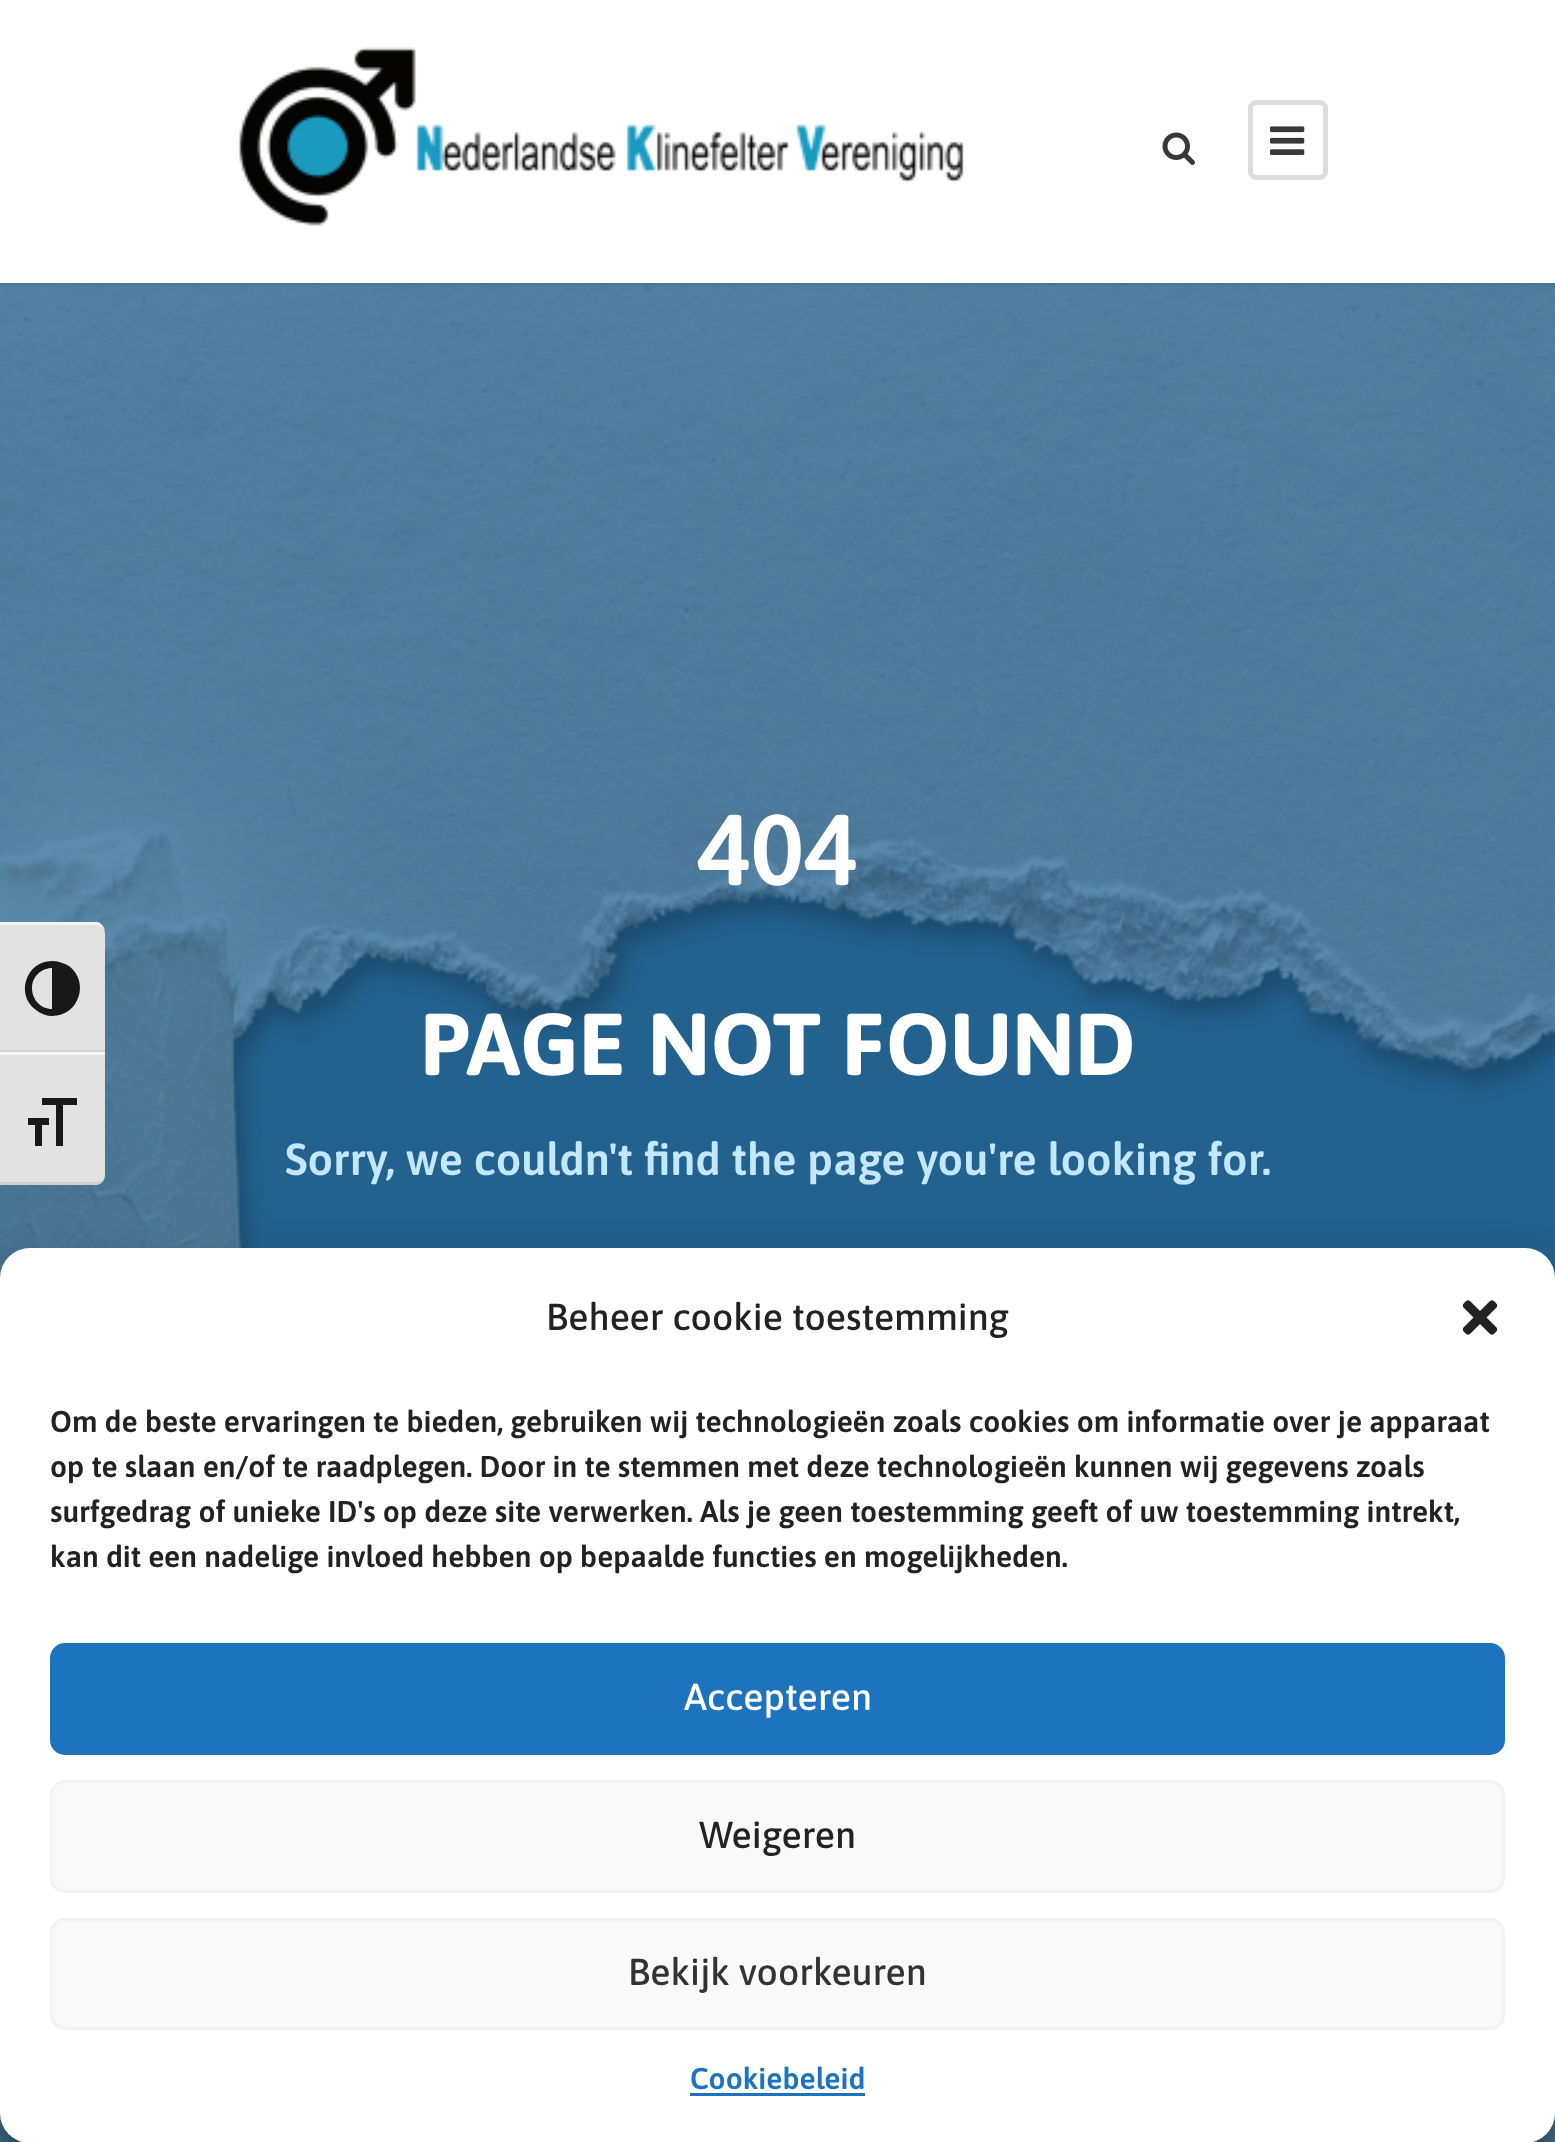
async function draw(canvas) {
  canvas.width = 1555;
  canvas.height = 2142;
  const ctx = canvas.getContext('2d');
  ctx.miterLimit = 4;
  ctx.fontKerning = 'normal';
  function label(s, x, y, font, color) {
    ctx.font = font;
    ctx.fillStyle = color;
    ctx.fillText(s, x, y);
  }
  function rect(x, y, w, h, color) {
    ctx.fillStyle = color;
    ctx.fillRect(x, y, w, h);
  }
  function roundedRect(x, y, w, h, r, color) {
    ctx.fillStyle = color;
    ctx.beginPath();
    ctx.roundRect(x, y, w, h, r);
    ctx.fill();
  }
  async function image(src, x, y, w, h) {
    const img = new Image();
    img.src = src;
    await img.decode();
    ctx.drawImage(img, x, y, w, h);
  }
  let path;

  rect(0, 0, 1555, 2142, '#23618e');
  await image('assets/img4.png', 0, 283, 1555, 1859);
  ctx.fillStyle = '#0000001a';
  ctx.filter = 'blur(2.5px)';
  ctx.beginPath();
  ctx.rect(0, 3, 1555, 282);
  ctx.fill();
  ctx.filter = 'none';
  rect(0, 0, 1555, 283, '#fff');
  await image('assets/img1.png', 239, 47, 725, 179);
  await image('assets/img2.png', 1162, 132, 33, 33);
  ctx.beginPath();
  ctx.roundRect(1250.5, 102.5, 75, 75, 5.5);
  ctx.strokeStyle = '#ddd';
  ctx.lineWidth = 5;
  ctx.stroke();
  await image('assets/img3.png', 1270, 126, 35, 29);
  ctx.fillStyle = '#e2e2e2';
  ctx.beginPath();
  ctx.roundRect(0, 923, 105, 130, [0, 10, 0, 0]);
  ctx.fill();
  ctx.fillStyle = '#f5f5f5';
  path = new Path2D('M0 925H95C101 925 105 928 105 932C105 928 102 924 98 922H0Z');
  ctx.fill(path);
  rect(0, 1050, 105, 2, '#d2d2d2');
  ctx.fillStyle = '#181818';
  path = new Path2D('M52 961C26 961 15 995 36 1010C41 1014 47 1016 52 1016C79 1016 90 982 69 966C64 963 58 961 52 961ZM32 988C32 977 41 968 52 968V1009C41 1009 32 1000 32 988Z');
  ctx.fill(path);
  ctx.fillStyle = '#e2e2e2';
  ctx.beginPath();
  ctx.roundRect(0, 1053, 105, 132, [0, 0, 10, 0]);
  ctx.fill();
  rect(0, 1052, 105, 3, '#f5f5f5');
  ctx.fillStyle = '#d2d2d2';
  path = new Path2D('M0 1182V1185H95C101 1185 105 1181 105 1175C105 1179 101 1182 95 1182Z');
  ctx.fill(path);
  ctx.fillStyle = '#181818';
  path = new Path2D('M28 1118H49V1125H42V1146H35V1125H28ZM77 1105H63V1146H56V1105H42V1098H77Z');
  ctx.fill(path);
  label('404', 697, 885, '600 100px Asap', '#fff');
  label('PAGE NOT FOUND', 420, 1075, 'bold 87.5px Asap', '#fff');
  label('Sorry, we couldn\'t find the page you\'re looking for.', 285, 1175, '600 45px Asap', '#c3e7ff');
  ctx.fillStyle = '#0000003b';
  ctx.filter = 'blur(7.5px)';
  ctx.beginPath();
  ctx.roundRect(0, 1263, 1555, 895, 30);
  ctx.fill();
  ctx.filter = 'none';
  ctx.fillStyle = '#00000030';
  ctx.filter = 'blur(25px)';
  ctx.beginPath();
  ctx.roundRect(0, 1273, 1555, 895, 30);
  ctx.fill();
  ctx.filter = 'none';
  roundedRect(0, 1248, 1555, 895, 30, '#fff');
  label('Beheer cookie toestemming', 546, 1330, '500 37.5px Asap', '#222');
  await image('assets/img5.png', 1462, 1300, 36, 35);
  label('Om de beste ervaringen te bieden, gebruiken wij technologieën zoals cookies om informatie over je apparaat', 50, 1432, '600 30px Asap', '#222');
  label('op te slaan en/of te raadplegen. Door in te stemmen met deze technologieën kunnen wij gegevens zoals', 50, 1477, '600 30px Asap', '#222');
  label('surfgedrag of unieke ID\'s op deze site verwerken. Als je geen toestemming geeft of uw toestemming intrekt,', 50, 1522, '600 30px Asap', '#222');
  label('kan dit een nadelige invloed hebben op bepaalde functies en mogelijkheden.', 50, 1567, '600 30px Asap', '#222');
  ctx.fillStyle = '#1e73be';
  ctx.beginPath();
  ctx.roundRect(51.5, 1644.5, 1452, 109, 13.5);
  ctx.fill();
  ctx.strokeStyle = '#1e73be';
  ctx.lineWidth = 3;
  ctx.stroke();
  label('Accepteren', 684, 1710, '500 37.5px Asap', '#fff');
  ctx.fillStyle = '#f9f9f9';
  ctx.beginPath();
  ctx.roundRect(51.5, 1781.5, 1452, 110, 13.5);
  ctx.fill();
  ctx.strokeStyle = '#f2f2f2';
  ctx.stroke();
  label('Weigeren', 699, 1848, '500 37.5px Asap', '#222');
  ctx.fillStyle = '#f9f9f9';
  ctx.beginPath();
  ctx.roundRect(51.5, 1919.5, 1452, 109, 13.5);
  ctx.fill();
  ctx.stroke();
  label('Bekijk voorkeuren', 628, 1985, '500 37.5px Asap', '#333');
  label('Cookiebeleid', 690, 2089, '600 30px Asap', '#1e73be');
  rect(690, 2093, 175, 3, '#1e73be');
}

draw(document.querySelector('canvas'));
